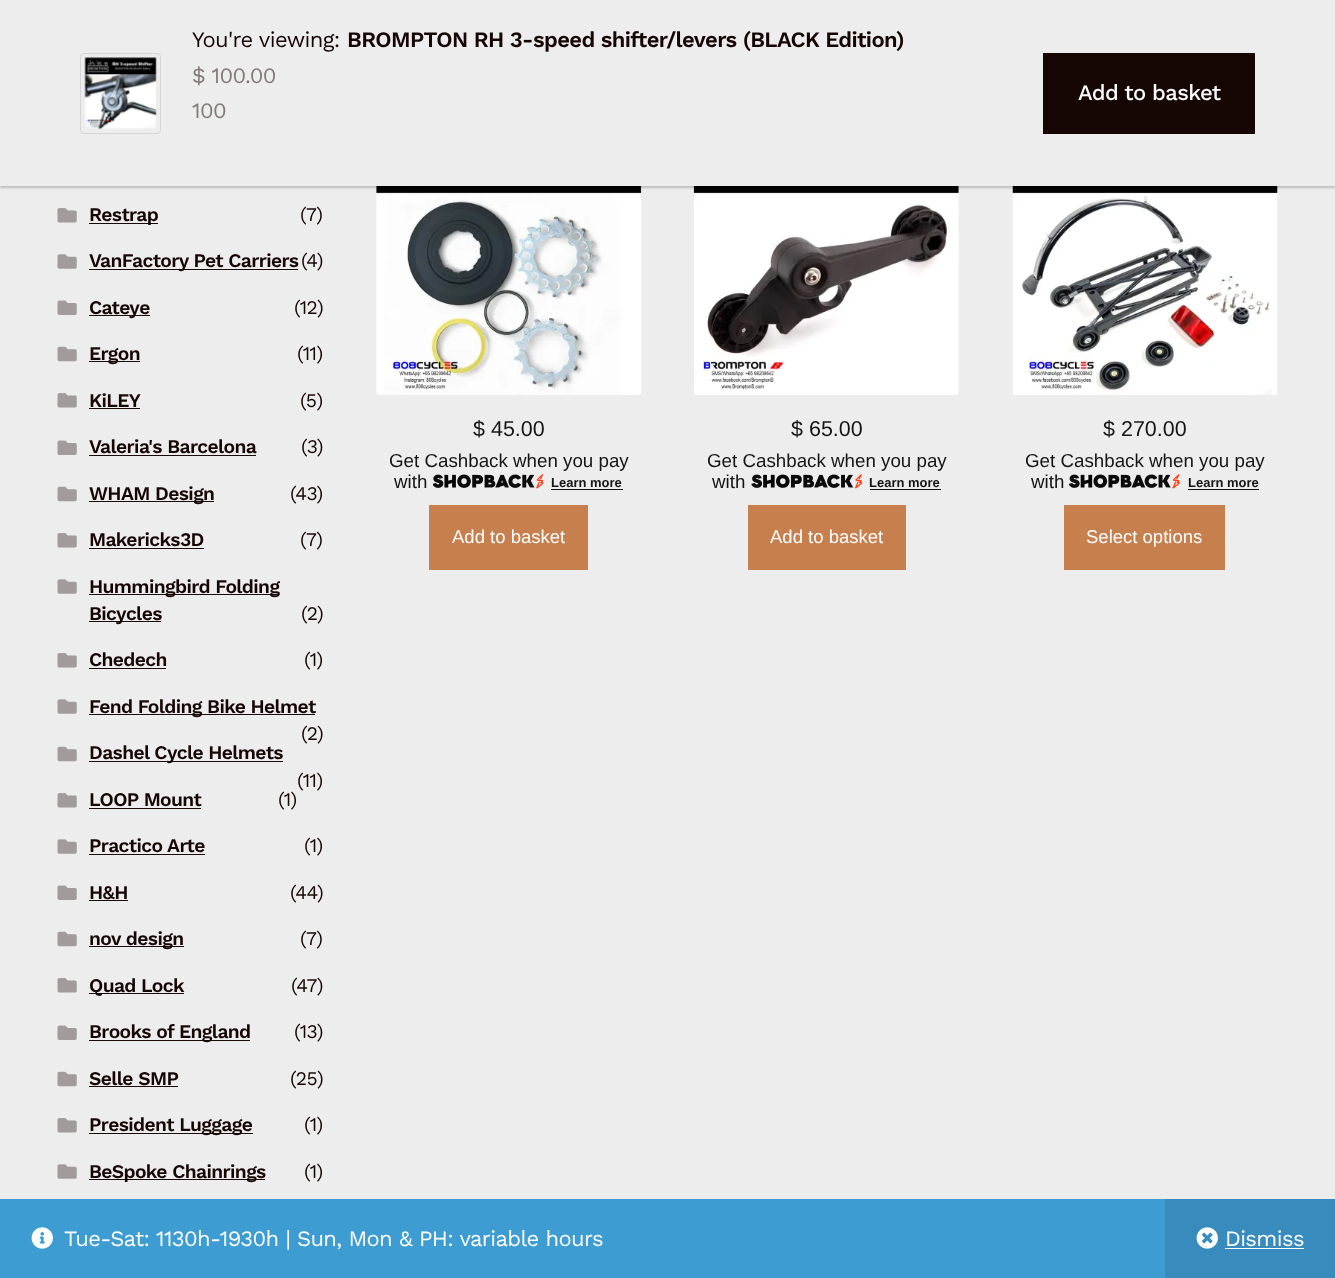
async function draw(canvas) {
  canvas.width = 1335;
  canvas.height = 1278;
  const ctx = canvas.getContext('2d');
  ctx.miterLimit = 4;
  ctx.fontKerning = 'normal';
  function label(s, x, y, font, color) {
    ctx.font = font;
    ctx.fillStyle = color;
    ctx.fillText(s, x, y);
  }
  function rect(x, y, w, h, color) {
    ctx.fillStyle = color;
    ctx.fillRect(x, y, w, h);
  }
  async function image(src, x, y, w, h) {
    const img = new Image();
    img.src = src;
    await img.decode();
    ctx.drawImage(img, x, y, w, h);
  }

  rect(0, 0, 1335, 1278, '#ededed');
  await image('assets/img6.png', 376, 186, 266, 209);
  await image('assets/img8.png', 693, 186, 266, 209);
  await image('assets/img10.png', 1012, 186, 266, 209);
  ctx.fillStyle = '#00000033';
  ctx.filter = 'blur(1px)';
  ctx.beginPath();
  ctx.rect(0, 1, 1335, 187);
  ctx.fill();
  ctx.filter = 'none';
  rect(0, 0, 1335, 186, '#ededed');
  ctx.beginPath();
  ctx.roundRect(80.5, 53.5, 80, 80, 3.5);
  ctx.strokeStyle = '#d5d5d5';
  ctx.stroke();
  await image('assets/img1.png', 84, 57, 73, 73);
  ctx.letterSpacing = '-0.62px';
  label('You\'re viewing:', 192, 47, '22px Work Sans', '#150604');
  label('BROMPTON RH 3-speed shifter/levers (BLACK Edition)', 347, 47, '600 22px Work Sans', '#150604');
  label('$ 100.00', 192, 83, '22px Work Sans', '#817a79');
  label('100', 192, 118, '22px Work Sans', '#817a79');
  rect(1043, 53, 212, 81, '#150604');
  label('Add to basket', 1078, 100, '500 22px Work Sans', '#fcfcfc');
  await image('assets/img2.png', 57, 208, 20, 15);
  rect(89, 223, 69, 1, '#1a0b09');
  label('Restrap', 89, 221, '600 19.25px Work Sans', '#150604');
  label('(7)', 300, 221, '19.25px Work Sans', '#150604');
  await image('assets/img3.png', 57, 254, 20, 15);
  rect(89, 269, 209, 1, '#1a0b09');
  label('VanFactory Pet Carriers', 89, 267, '600 19.25px Work Sans', '#150604');
  label('(4)', 301, 267, '19.25px Work Sans', '#150604');
  await image('assets/img4.png', 57, 300, 20, 15);
  rect(89, 315, 61, 1, '#1a0b09');
  label('Cateye', 89, 314, '600 19.25px Work Sans', '#150604');
  label('(12)', 294, 314, '19.25px Work Sans', '#150604');
  await image('assets/img5.png', 57, 346, 20, 16);
  rect(89, 361, 51, 1, '#1a0b09');
  label('Ergon', 89, 360, '600 19.25px Work Sans', '#150604');
  label('(11)', 297, 360, '19.25px Work Sans', '#150604');
  await image('assets/img2.png', 57, 393, 20, 15);
  label('KiLEY', 89, 407, '600 19.25px Work Sans', '#150604');
  rect(89, 408, 51, 1, '#1a0b09');
  label('(5)', 300, 407, '19.25px Work Sans', '#150604');
  await image('assets/img4.png', 57, 440, 20, 15);
  label('Valeria\'s Barcelona', 89, 453, '600 19.25px Work Sans', '#150604');
  rect(89, 455, 167, 1, '#1a0b09');
  label('(3)', 301, 453, '19.25px Work Sans', '#150604');
  await image('assets/img5.png', 57, 486, 20, 16);
  rect(89, 501, 125, 1, '#1a0b09');
  label('WHAM Design', 89, 500, '600 19.25px Work Sans', '#150604');
  label('(43)', 290, 500, '19.25px Work Sans', '#150604');
  await image('assets/img2.png', 57, 533, 20, 15);
  label('Makericks3D', 89, 546, '600 19.25px Work Sans', '#150604');
  rect(89, 548, 115, 1, '#1a0b09');
  label('(7)', 300, 546, '19.25px Work Sans', '#150604');
  await image('assets/img3.png', 57, 579, 20, 15);
  rect(89, 594, 190, 1, '#1a0b09');
  label('Hummingbird Folding', 89, 593, '600 19.25px Work Sans', '#150604');
  rect(89, 621, 72, 1, '#1a0b09');
  label('Bicycles', 89, 620, '600 19.25px Work Sans', '#150604');
  label('(2)', 301, 620, '19.25px Work Sans', '#150604');
  await image('assets/img2.png', 57, 653, 20, 15);
  label('Chedech', 89, 666, '600 19.25px Work Sans', '#150604');
  rect(89, 668, 77, 1, '#1a0b09');
  label('(1)', 304, 666, '19.25px Work Sans', '#150604');
  await image('assets/img3.png', 57, 699, 20, 15);
  rect(89, 714, 226, 1, '#1a0b09');
  label('Fend Folding Bike Helmet', 89, 713, '600 19.25px Work Sans', '#150604');
  label('(2)', 301, 740, '19.25px Work Sans', '#150604');
  await image('assets/img5.png', 57, 746, 20, 16);
  rect(89, 761, 194, 1, '#1a0b09');
  label('Dashel Cycle Helmets', 89, 759, '600 19.25px Work Sans', '#150604');
  label('(11)', 297, 787, '19.25px Work Sans', '#150604');
  await image('assets/img2.png', 57, 793, 20, 15);
  label('LOOP Mount', 89, 806, '600 19.25px Work Sans', '#150604');
  rect(89, 808, 112, 1, '#1a0b09');
  label('(1)', 278, 806, '19.25px Work Sans', '#150604');
  await image('assets/img3.png', 57, 839, 20, 15);
  label('Practico Arte', 89, 852, '600 19.25px Work Sans', '#150604');
  rect(89, 854, 116, 1, '#1a0b09');
  label('(1)', 304, 852, '19.25px Work Sans', '#150604');
  await image('assets/img4.png', 57, 885, 20, 15);
  label('H&H', 89, 899, '600 19.25px Work Sans', '#150604');
  rect(89, 900, 39, 1, '#1a0b09');
  label('(44)', 290, 899, '19.25px Work Sans', '#150604');
  await image('assets/img5.png', 57, 931, 20, 16);
  rect(89, 946, 95, 1, '#1a0b09');
  label('nov design', 89, 945, '600 19.25px Work Sans', '#150604');
  label('(7)', 300, 945, '19.25px Work Sans', '#150604');
  await image('assets/img2.png', 57, 978, 20, 15);
  rect(89, 993, 95, 1, '#1a0b09');
  label('Quad Lock', 89, 992, '600 19.25px Work Sans', '#150604');
  label('(47)', 291, 992, '19.25px Work Sans', '#150604');
  await image('assets/img4.png', 57, 1025, 20, 15);
  rect(89, 1040, 161, 1, '#1a0b09');
  label('Brooks of England', 89, 1038, '600 19.25px Work Sans', '#150604');
  label('(13)', 294, 1038, '19.25px Work Sans', '#150604');
  await image('assets/img5.png', 57, 1071, 20, 16);
  label('Selle SMP', 89, 1085, '600 19.25px Work Sans', '#150604');
  rect(89, 1086, 89, 1, '#1a0b09');
  label('(25)', 290, 1085, '19.25px Work Sans', '#150604');
  await image('assets/img2.png', 57, 1118, 20, 15);
  rect(89, 1133, 164, 1, '#1a0b09');
  label('President Luggage', 89, 1131, '600 19.25px Work Sans', '#150604');
  label('(1)', 304, 1131, '19.25px Work Sans', '#150604');
  await image('assets/img3.png', 57, 1164, 20, 15);
  rect(89, 1179, 176, 1, '#1a0b09');
  label('BeSpoke Chainrings', 89, 1178, '600 19.25px Work Sans', '#150604');
  label('(1)', 304, 1178, '19.25px Work Sans', '#150604');
  ctx.letterSpacing = '0px';
  label('$ 45.00', 473, 436, '21.5px Liberation Sans', '#151515');
  label('Get Cashback when you pay', 389, 467, '18.75px Liberation Sans', '#151515');
  label('with', 394, 488, '18.75px Liberation Sans', '#151515');
  await image('assets/img7.png', 433, 474, 111, 15);
  label('Learn more', 551, 487, 'bold 13px Liberation Sans', '#151515');
  rect(551, 489, 72, 1, '#151515');
  rect(429, 505, 159, 65, '#c7804d');
  label('Add to basket', 452, 543, '18.5px Liberation Sans', '#fcfcfc');
  label('$ 65.00', 791, 436, '21.5px Liberation Sans', '#151515');
  label('Get Cashback when you pay', 707, 467, '18.75px Liberation Sans', '#151515');
  label('with', 712, 488, '18.75px Liberation Sans', '#151515');
  await image('assets/img9.png', 751, 474, 112, 15);
  label('Learn more', 869, 487, 'bold 13px Liberation Sans', '#151515');
  rect(870, 489, 71, 1, '#151515');
  rect(748, 505, 158, 65, '#c7804d');
  label('Add to basket', 770, 543, '18.5px Liberation Sans', '#fcfcfc');
  label('$ 270.00', 1103, 436, '21.5px Liberation Sans', '#151515');
  label('Get Cashback when you pay', 1025, 467, '18.75px Liberation Sans', '#151515');
  label('with', 1031, 488, '18.75px Liberation Sans', '#151515');
  await image('assets/img11.png', 1069, 474, 111, 15);
  label('Learn more', 1188, 487, 'bold 13px Liberation Sans', '#151515');
  rect(1188, 489, 71, 1, '#151515');
  rect(1064, 505, 161, 65, '#c7804d');
  label('Select options', 1086, 543, '18.5px Liberation Sans', '#fcfcfc');
  rect(0, 1199, 1165, 79, '#3d9cd2');
  await image('assets/img12.png', 31, 1227, 22, 22);
  ctx.letterSpacing = '-0.62px';
  label('Tue-Sat: 1130h-1930h | Sun, Mon & PH: variable hours', 64, 1246, '22px Work Sans', '#fcfcfc');
  rect(1165, 1199, 170, 79, '#378cbd');
  await image('assets/img13.png', 1196, 1227, 22, 22);
  label('Dismiss', 1225, 1246, '22px Work Sans', '#fcfcfc');
  rect(1225, 1248, 79, 1, '#fff');
}

draw(document.querySelector('canvas'));
